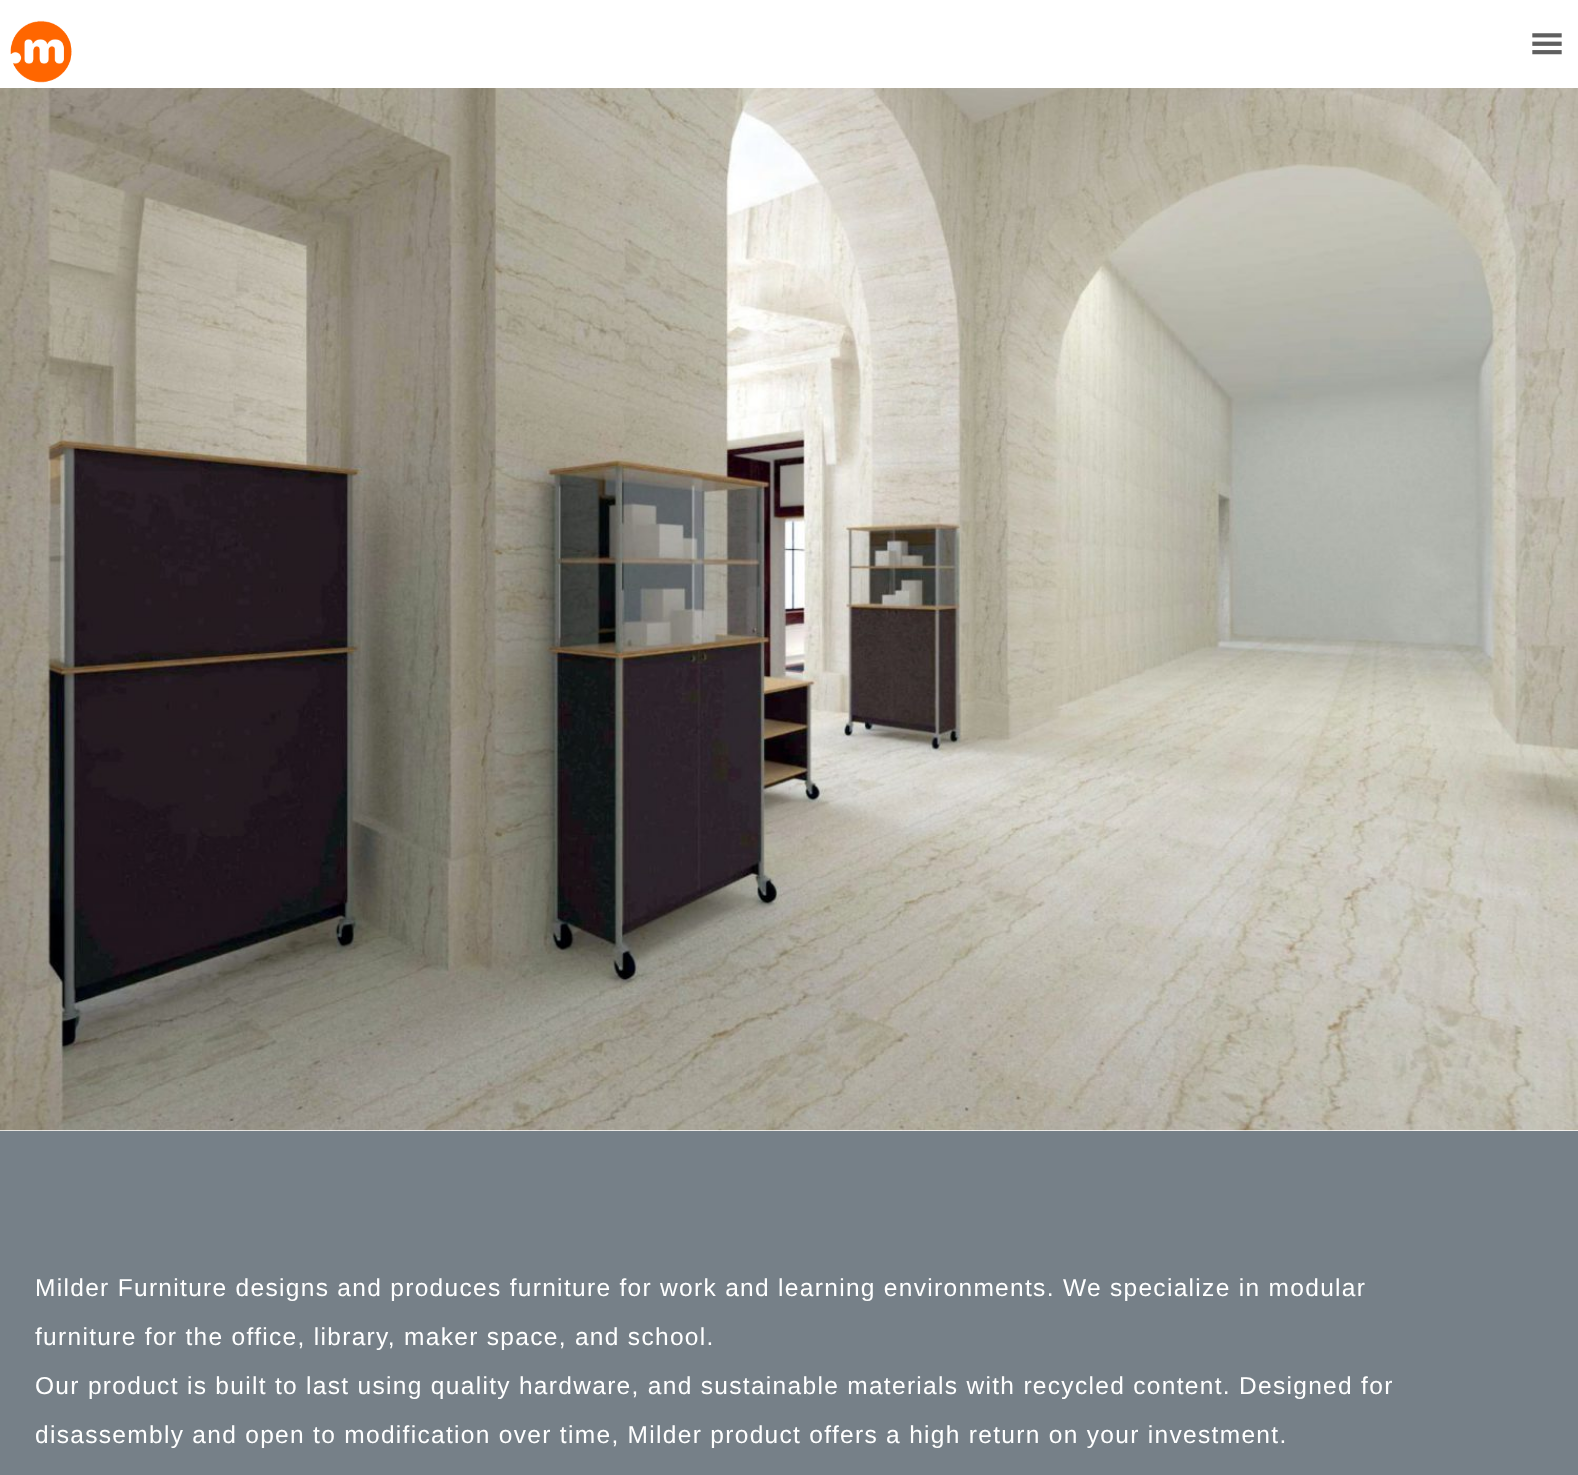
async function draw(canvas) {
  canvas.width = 1578;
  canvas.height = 1475;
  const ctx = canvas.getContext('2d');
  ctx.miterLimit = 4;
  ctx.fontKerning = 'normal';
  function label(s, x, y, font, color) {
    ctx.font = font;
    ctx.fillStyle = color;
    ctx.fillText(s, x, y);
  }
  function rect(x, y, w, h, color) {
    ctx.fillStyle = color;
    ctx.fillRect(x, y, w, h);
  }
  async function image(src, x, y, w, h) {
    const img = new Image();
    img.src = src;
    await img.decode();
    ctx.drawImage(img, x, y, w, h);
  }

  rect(0, 0, 1578, 1475, '#fff');
  await image('assets/img1.png', 10, 20, 62, 63);
  await image('assets/img2.png', 1532, 33, 30, 22);
  await image('assets/img3.png', 0, 88, 1578, 1043);
  rect(0, 1131, 1578, 344, '#768088');
  ctx.letterSpacing = '1.31px';
  label('Milder Furniture designs and produces furniture for work and learning environments. We specialize in modular', 35, 1296, '24.5px Liberation Sans', '#fff');
  label('furniture for the office, library, maker space, and school.', 35, 1345, '24.5px Liberation Sans', '#fff');
  label('Our product is built to last using quality hardware, and sustainable materials with recycled content. Designed for', 35, 1394, '24.5px Liberation Sans', '#fff');
  label('disassembly and open to modification over time, Milder product offers a high return on your investment.', 35, 1443, '24.5px Liberation Sans', '#fff');
}

draw(document.querySelector('canvas'));
